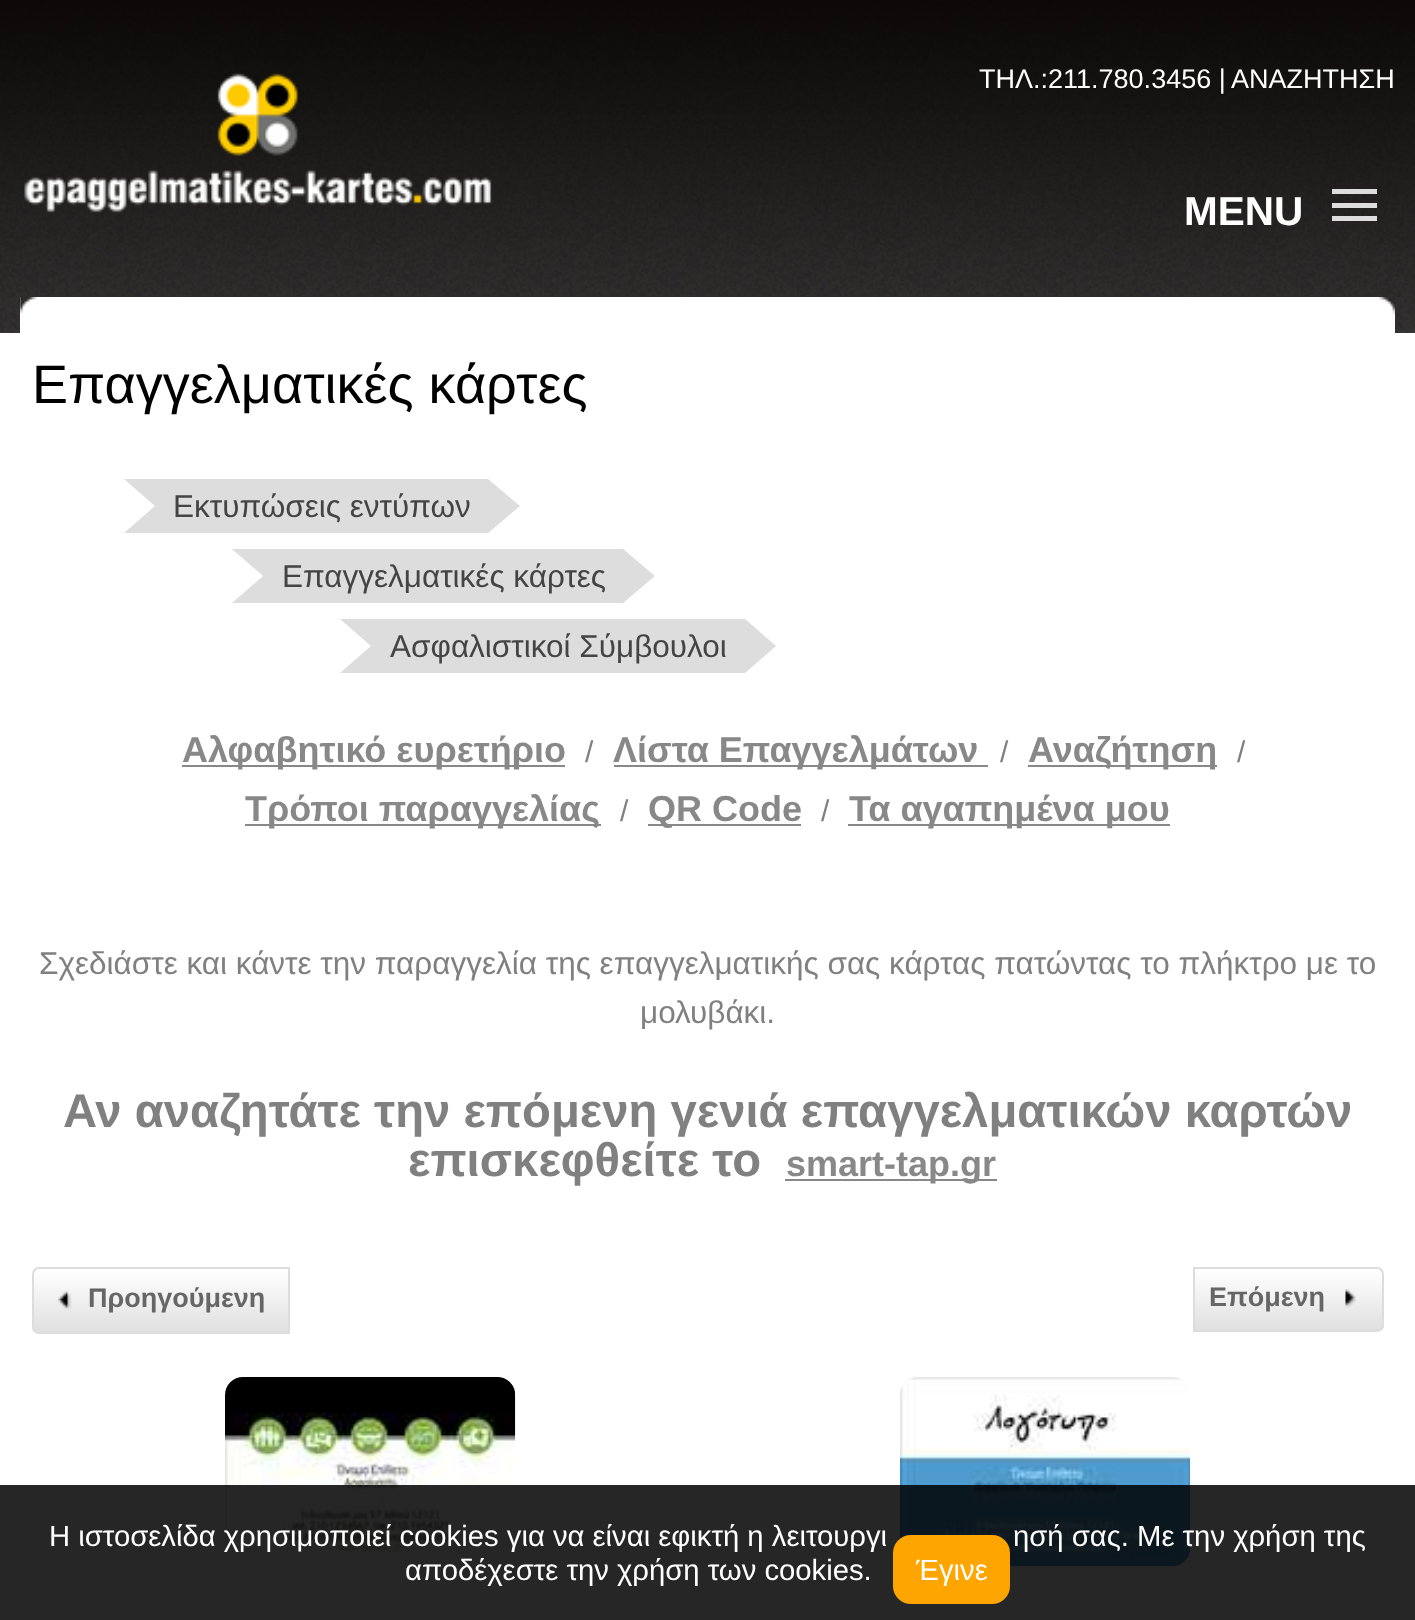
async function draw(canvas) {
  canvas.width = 1415;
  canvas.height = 1620;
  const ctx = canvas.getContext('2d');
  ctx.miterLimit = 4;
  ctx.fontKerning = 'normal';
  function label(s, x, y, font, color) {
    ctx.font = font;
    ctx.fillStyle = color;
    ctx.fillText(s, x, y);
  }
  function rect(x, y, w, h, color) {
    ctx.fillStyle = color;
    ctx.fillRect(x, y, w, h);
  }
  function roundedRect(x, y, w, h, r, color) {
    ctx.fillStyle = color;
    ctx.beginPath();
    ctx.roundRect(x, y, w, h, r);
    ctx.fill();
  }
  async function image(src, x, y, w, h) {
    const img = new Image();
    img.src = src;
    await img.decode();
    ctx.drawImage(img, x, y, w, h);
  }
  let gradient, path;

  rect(0, 0, 1415, 1620, '#fff');
  await image('assets/img1.png', 0, 0, 1415, 333);
  await image('assets/img2.png', 24, 73, 468, 140);
  label('ΤΗΛ.:211.780.3456 |', 979, 88, '27px Liberation Sans', '#fff');
  label('ΑΝΑΖΗΤΗΣΗ', 1231, 88, '27px Liberation Sans', '#fff');
  rect(1332, 189, 45, 5, '#ddd');
  label('MENU', 1184, 225, 'bold 40.5px Liberation Sans', '#fff');
  rect(1332, 203, 45, 5, '#ddd');
  rect(1332, 216, 45, 5, '#ddd');
  rect(20, 297, 1375, 36, '#fff');
  await image('assets/img3.png', 20, 297, 17, 17);
  await image('assets/img4.png', 1378, 297, 17, 19);
  label('Επαγγελματικές κάρτες', 32, 403, '54px Liberation Sans', '#000');
  rect(155, 479, 333, 54, '#ddd');
  path = new Path2D('M124 479H155V506ZM155 533H124L155 506Z');
  ctx.fill(path);
  label('Εκτυπώσεις εντύπων', 173, 517, '31.5px Liberation Sans', '#444');
  ctx.fillStyle = '#ddd';
  path = new Path2D('M488 533V479L520 506Z');
  ctx.fill(path);
  rect(263, 549, 360, 54, '#ddd');
  path = new Path2D('M232 549H263V576ZM263 603H232L263 576Z');
  ctx.fill(path);
  label('Επαγγελματικές κάρτες', 282, 587, '31.5px Liberation Sans', '#444');
  ctx.fillStyle = '#ddd';
  path = new Path2D('M623 603V549L655 576Z');
  ctx.fill(path);
  rect(371, 619, 374, 54, '#ddd');
  path = new Path2D('M340 619H371V646ZM371 673H340L371 646Z');
  ctx.fill(path);
  label('Ασφαλιστικοί Σύμβουλοι', 390, 657, '31.5px Liberation Sans', '#444');
  ctx.fillStyle = '#ddd';
  path = new Path2D('M745 673V619L776 646Z');
  ctx.fill(path);
  rect(182, 765, 383, 2, '#888');
  label('Αλφαβητικό ευρετήριο', 182, 762, 'bold 36px Liberation Sans', '#888');
  label('/', 585, 762, '30px Liberation Sans', '#808080');
  rect(614, 765, 374, 2, '#888');
  label('Λίστα Επαγγελμάτων', 613, 762, 'bold 36px Liberation Sans', '#888');
  label('/', 1000, 762, '30px Liberation Sans', '#808080');
  rect(1028, 765, 189, 2, '#888');
  label('Αναζήτηση', 1028, 762, 'bold 36px Liberation Sans', '#888');
  label('/', 1237, 762, '30px Liberation Sans', '#808080');
  rect(245, 824, 356, 2, '#888');
  label('Tρόποι παραγγελίας', 245, 821, 'bold 36px Liberation Sans', '#888');
  label('/', 620, 821, '30px Liberation Sans', '#808080');
  rect(648, 824, 153, 2, '#888');
  label('QR Code', 648, 821, 'bold 36px Liberation Sans', '#888');
  label('/', 821, 821, '30px Liberation Sans', '#808080');
  rect(848, 824, 322, 2, '#888');
  label('Τα αγαπημένα μου', 849, 821, 'bold 36px Liberation Sans', '#888');
  label('Σχεδιάστε και κάντε την παραγγελία της επαγγελματικής σας κάρτας πατώντας το πλήκτρο με το', 39, 974, '31.5px Liberation Sans', '#808080');
  label('μολυβάκι.', 640, 1023, '31.5px Liberation Sans', '#808080');
  label('Αν αναζητάτε την επόμενη γενιά επαγγελματικών καρτών', 63, 1127, 'bold 47.25px Liberation Sans', '#808080');
  label('επισκεφθείτε το', 408, 1176, 'bold 47.25px Liberation Sans', '#808080');
  rect(785, 1179, 212, 2, '#888');
  label('smart-tap.gr', 786, 1176, 'bold 36px Liberation Sans', '#888');
  ctx.save();
  ctx.beginPath();
  ctx.roundRect(32, 1267, 258, 67, [7, 0, 0, 7]);
  ctx.clip();
  gradient = ctx.createLinearGradient(161, 1269, 161, 1332);
  gradient.addColorStop(0, '#fff');
  gradient.addColorStop(1, '#e0e0e0');
  ctx.fillStyle = gradient;
  ctx.fillRect(32, 1269, 256, 63);
  ctx.restore();
  ctx.beginPath();
  ctx.roundRect(33, 1268, 256, 65, [6, 0, 0, 6]);
  ctx.strokeStyle = '#ddd';
  ctx.lineWidth = 2;
  ctx.stroke();
  await image('assets/img5.png', 58, 1291, 14, 19);
  label('Προηγούμενη', 88, 1307, 'bold 27px Liberation Sans', '#666');
  ctx.save();
  ctx.beginPath();
  ctx.roundRect(1193, 1267, 191, 65, [0, 7, 7, 0]);
  ctx.clip();
  gradient = ctx.createLinearGradient(1288, 1269, 1288, 1330);
  gradient.addColorStop(0, '#fff');
  gradient.addColorStop(1, '#e0e0e0');
  ctx.fillStyle = gradient;
  ctx.fillRect(1195, 1269, 189, 61);
  ctx.restore();
  ctx.beginPath();
  ctx.roundRect(1194, 1268, 189, 63, [0, 6, 6, 0]);
  ctx.stroke();
  label('Επόμενη', 1209, 1306, 'bold 27px Liberation Sans', '#666');
  await image('assets/img6.png', 1345, 1288, 12, 20);
  await image('assets/img7.png', 225, 1377, 291, 181);
  await image('assets/img8.png', 900, 1377, 291, 189);
  rect(0, 1485, 1415, 135, '#000000d9');
  label('Η ιστοσελίδα χρησιμοποιεί cookies για να είναι εφικτή η λειτουργι', 49, 1546, '29.25px Liberation Sans', '#fff');
  label('ησή σας. Με την χρήση της', 1013, 1546, '29.25px Liberation Sans', '#fff');
  label('αποδέχεστε την χρήση των cookies.', 405, 1580, '29.25px Liberation Sans', '#fff');
  roundedRect(893, 1535, 117, 69, 18, '#ffa500');
  label('Έγινε', 916, 1580, '29.25px Liberation Sans', '#fff');
}

draw(document.querySelector('canvas'));
